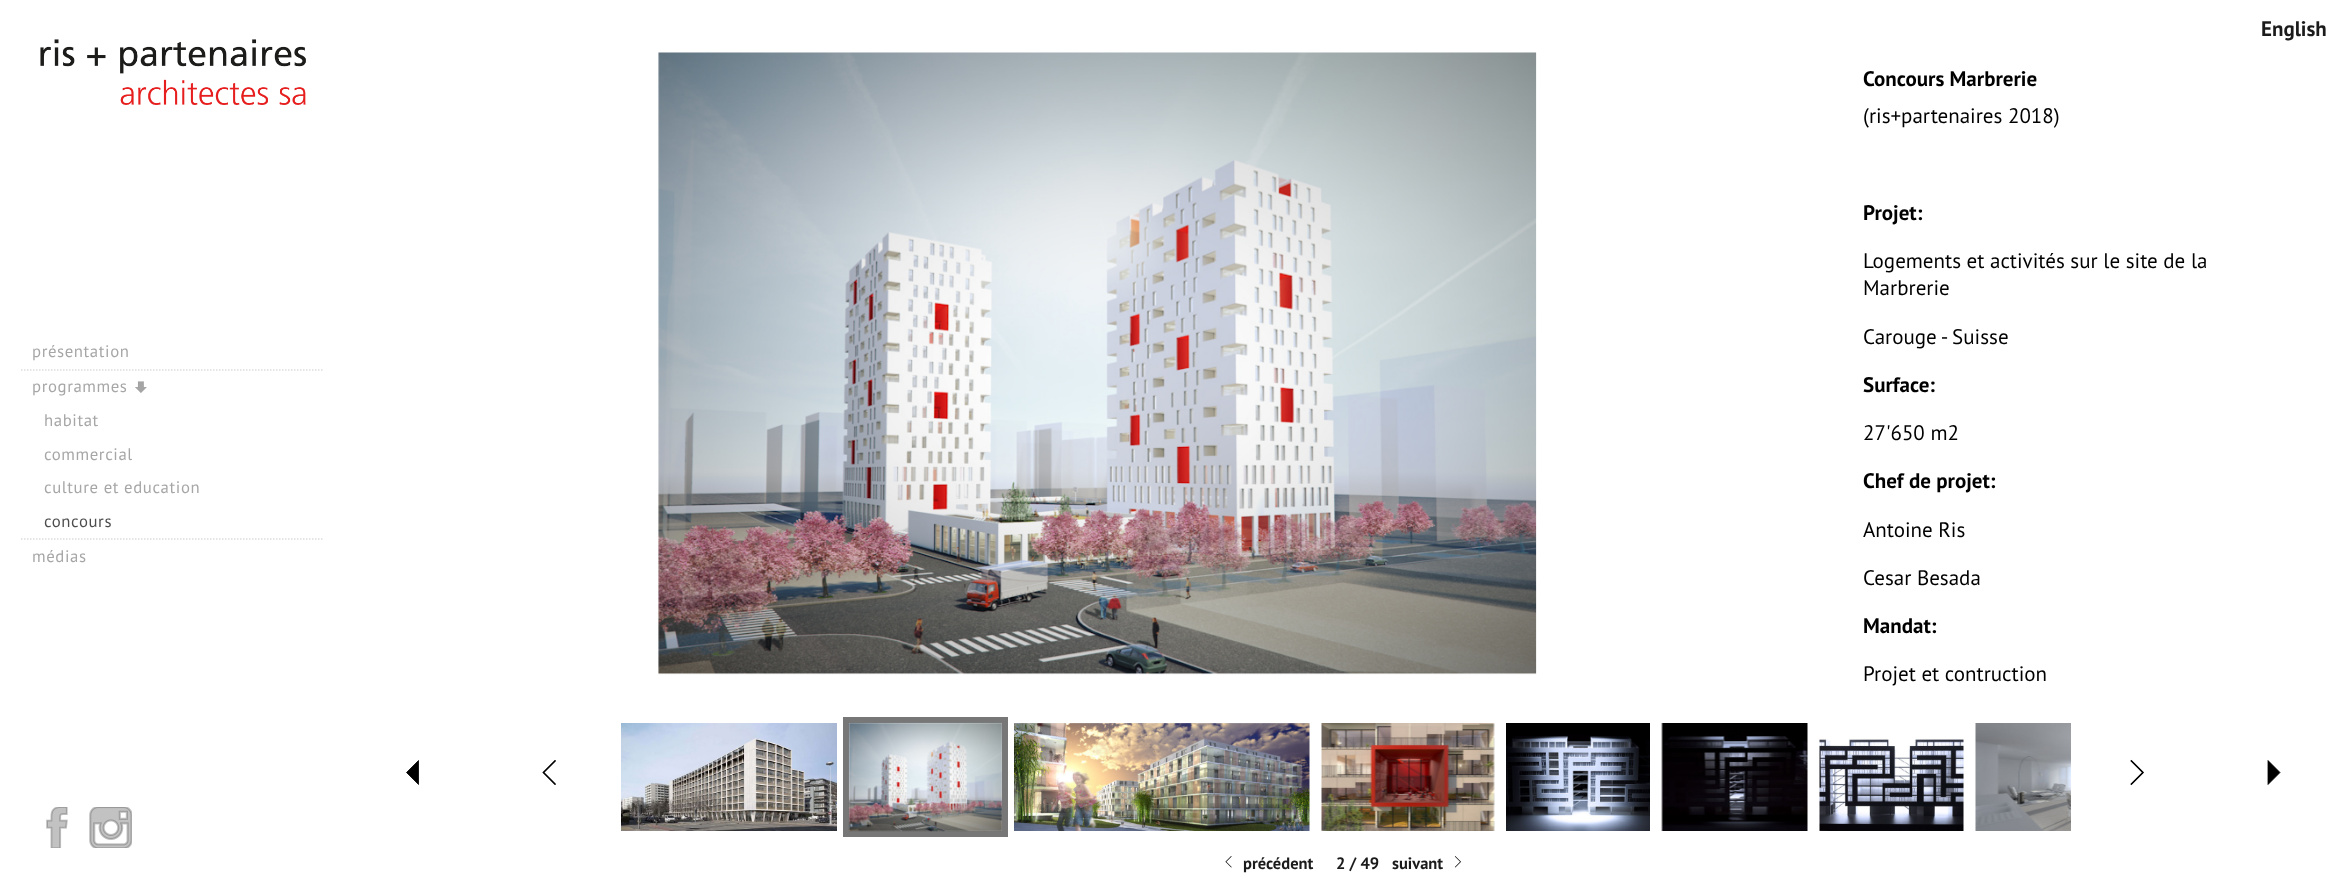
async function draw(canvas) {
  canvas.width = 2341;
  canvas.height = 889;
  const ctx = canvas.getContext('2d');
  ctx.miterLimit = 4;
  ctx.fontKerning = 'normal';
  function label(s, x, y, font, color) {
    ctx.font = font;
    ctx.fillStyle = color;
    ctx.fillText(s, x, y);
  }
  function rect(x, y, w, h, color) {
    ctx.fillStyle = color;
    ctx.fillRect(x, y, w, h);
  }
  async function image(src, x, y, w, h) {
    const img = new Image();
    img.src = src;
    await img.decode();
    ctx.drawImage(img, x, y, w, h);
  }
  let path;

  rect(0, 0, 2341, 889, '#fff');
  label('English', 2261, 36, 'bold 21px PT Sans', '#1b1b1b');
  await image('assets/img1.png', 40, 39, 266, 66);
  path = new Path2D('M21 370H324');
  ctx.strokeStyle = '#ddd';
  ctx.lineWidth = 1.5;
  ctx.setLineDash([1.5, 1.5]);
  ctx.stroke(path);
  ctx.letterSpacing = '0.6px';
  label('présentation', 32, 357, '16.75px PT Sans', '#a6a6a6');
  path = new Path2D('M21 539H324');
  ctx.stroke(path);
  label('programmes', 32, 392, '16.75px PT Sans', '#a6a6a6');
  await image('assets/img2.png', 135, 381, 12, 12);
  label('habitat', 44, 426, '16.75px PT Sans', '#a6a6a6');
  label('commercial', 44, 460, '16.75px PT Sans', '#a6a6a6');
  label('culture et education', 44, 493, '16.75px PT Sans', '#a6a6a6');
  label('concours', 44, 527, '16.75px PT Sans', '#4c4c4c');
  label('médias', 32, 562, '16.75px PT Sans', '#a6a6a6');
  await image('assets/img3.png', 46, 807, 22, 41);
  await image('assets/img4.png', 89, 807, 43, 41);
  await image('assets/img5.png', 658, 52, 879, 623);
  ctx.letterSpacing = '0px';
  label('Concours Marbrerie', 1863, 86, 'bold 21px PT Sans', '#000');
  label('(ris+partenaires 2018)', 1863, 123, '21px PT Sans', '#000');
  label('Projet:', 1863, 220, 'bold 21px PT Sans', '#000');
  label('Logements et activités sur le site de la', 1863, 268, '21px PT Sans', '#000');
  label('Marbrerie', 1863, 295, '21px PT Sans', '#000');
  label('Carouge - Suisse', 1863, 344, '21px PT Sans', '#000');
  label('Surface:', 1863, 392, 'bold 21px PT Sans', '#000');
  label('27\'650 m2', 1863, 440, '21px PT Sans', '#000');
  label('Chef de projet:', 1863, 488, 'bold 21px PT Sans', '#000');
  label('Antoine Ris', 1863, 537, '21px PT Sans', '#000');
  label('Cesar Besada', 1863, 585, '21px PT Sans', '#000');
  label('Mandat:', 1863, 633, 'bold 21px PT Sans', '#000');
  label('Projet et contruction', 1863, 681, '21px PT Sans', '#000');
  path = new Path2D('M418.5 760.5L406.5 772.5L418.5 784.5Z');
  ctx.fill(path);
  ctx.strokeStyle = '#000';
  ctx.lineWidth = 0.8;
  ctx.setLineDash([]);
  ctx.stroke(path);
  await image('assets/img6.png', 542, 760, 14, 25);
  await image('assets/img7.png', 621, 723, 216, 108);
  ctx.strokeStyle = '#777';
  ctx.lineWidth = 6;
  ctx.strokeRect(846, 720, 159, 114);
  await image('assets/img8.png', 848, 722, 154, 110);
  await image('assets/img9.png', 1014, 723, 296, 108);
  await image('assets/img10.png', 1321, 723, 174, 108);
  await image('assets/img11.png', 1506, 723, 144, 108);
  await image('assets/img12.png', 1661, 723, 147, 108);
  await image('assets/img13.png', 1819, 738, 145, 93);
  await image('assets/img14.png', 1975, 723, 96, 108);
  await image('assets/img15.png', 2130, 759, 14, 27);
  path = new Path2D('M2268 760.5L2280 772.5L2268 784.5Z');
  ctx.fill(path);
  ctx.strokeStyle = '#000';
  ctx.lineWidth = 0.8;
  ctx.stroke(path);
  await image('assets/img16.png', 1225, 856, 7, 12);
  label('précédent', 1243, 869, 'bold 16.5px PT Sans', '#1b1b1b');
  label('2 / 49', 1336, 869, 'bold 16.5px PT Sans', '#1b1b1b');
  label('suivant', 1392, 869, 'bold 16.5px PT Sans', '#1b1b1b');
  await image('assets/img17.png', 1454, 856, 7, 12);
}

draw(document.querySelector('canvas'));
